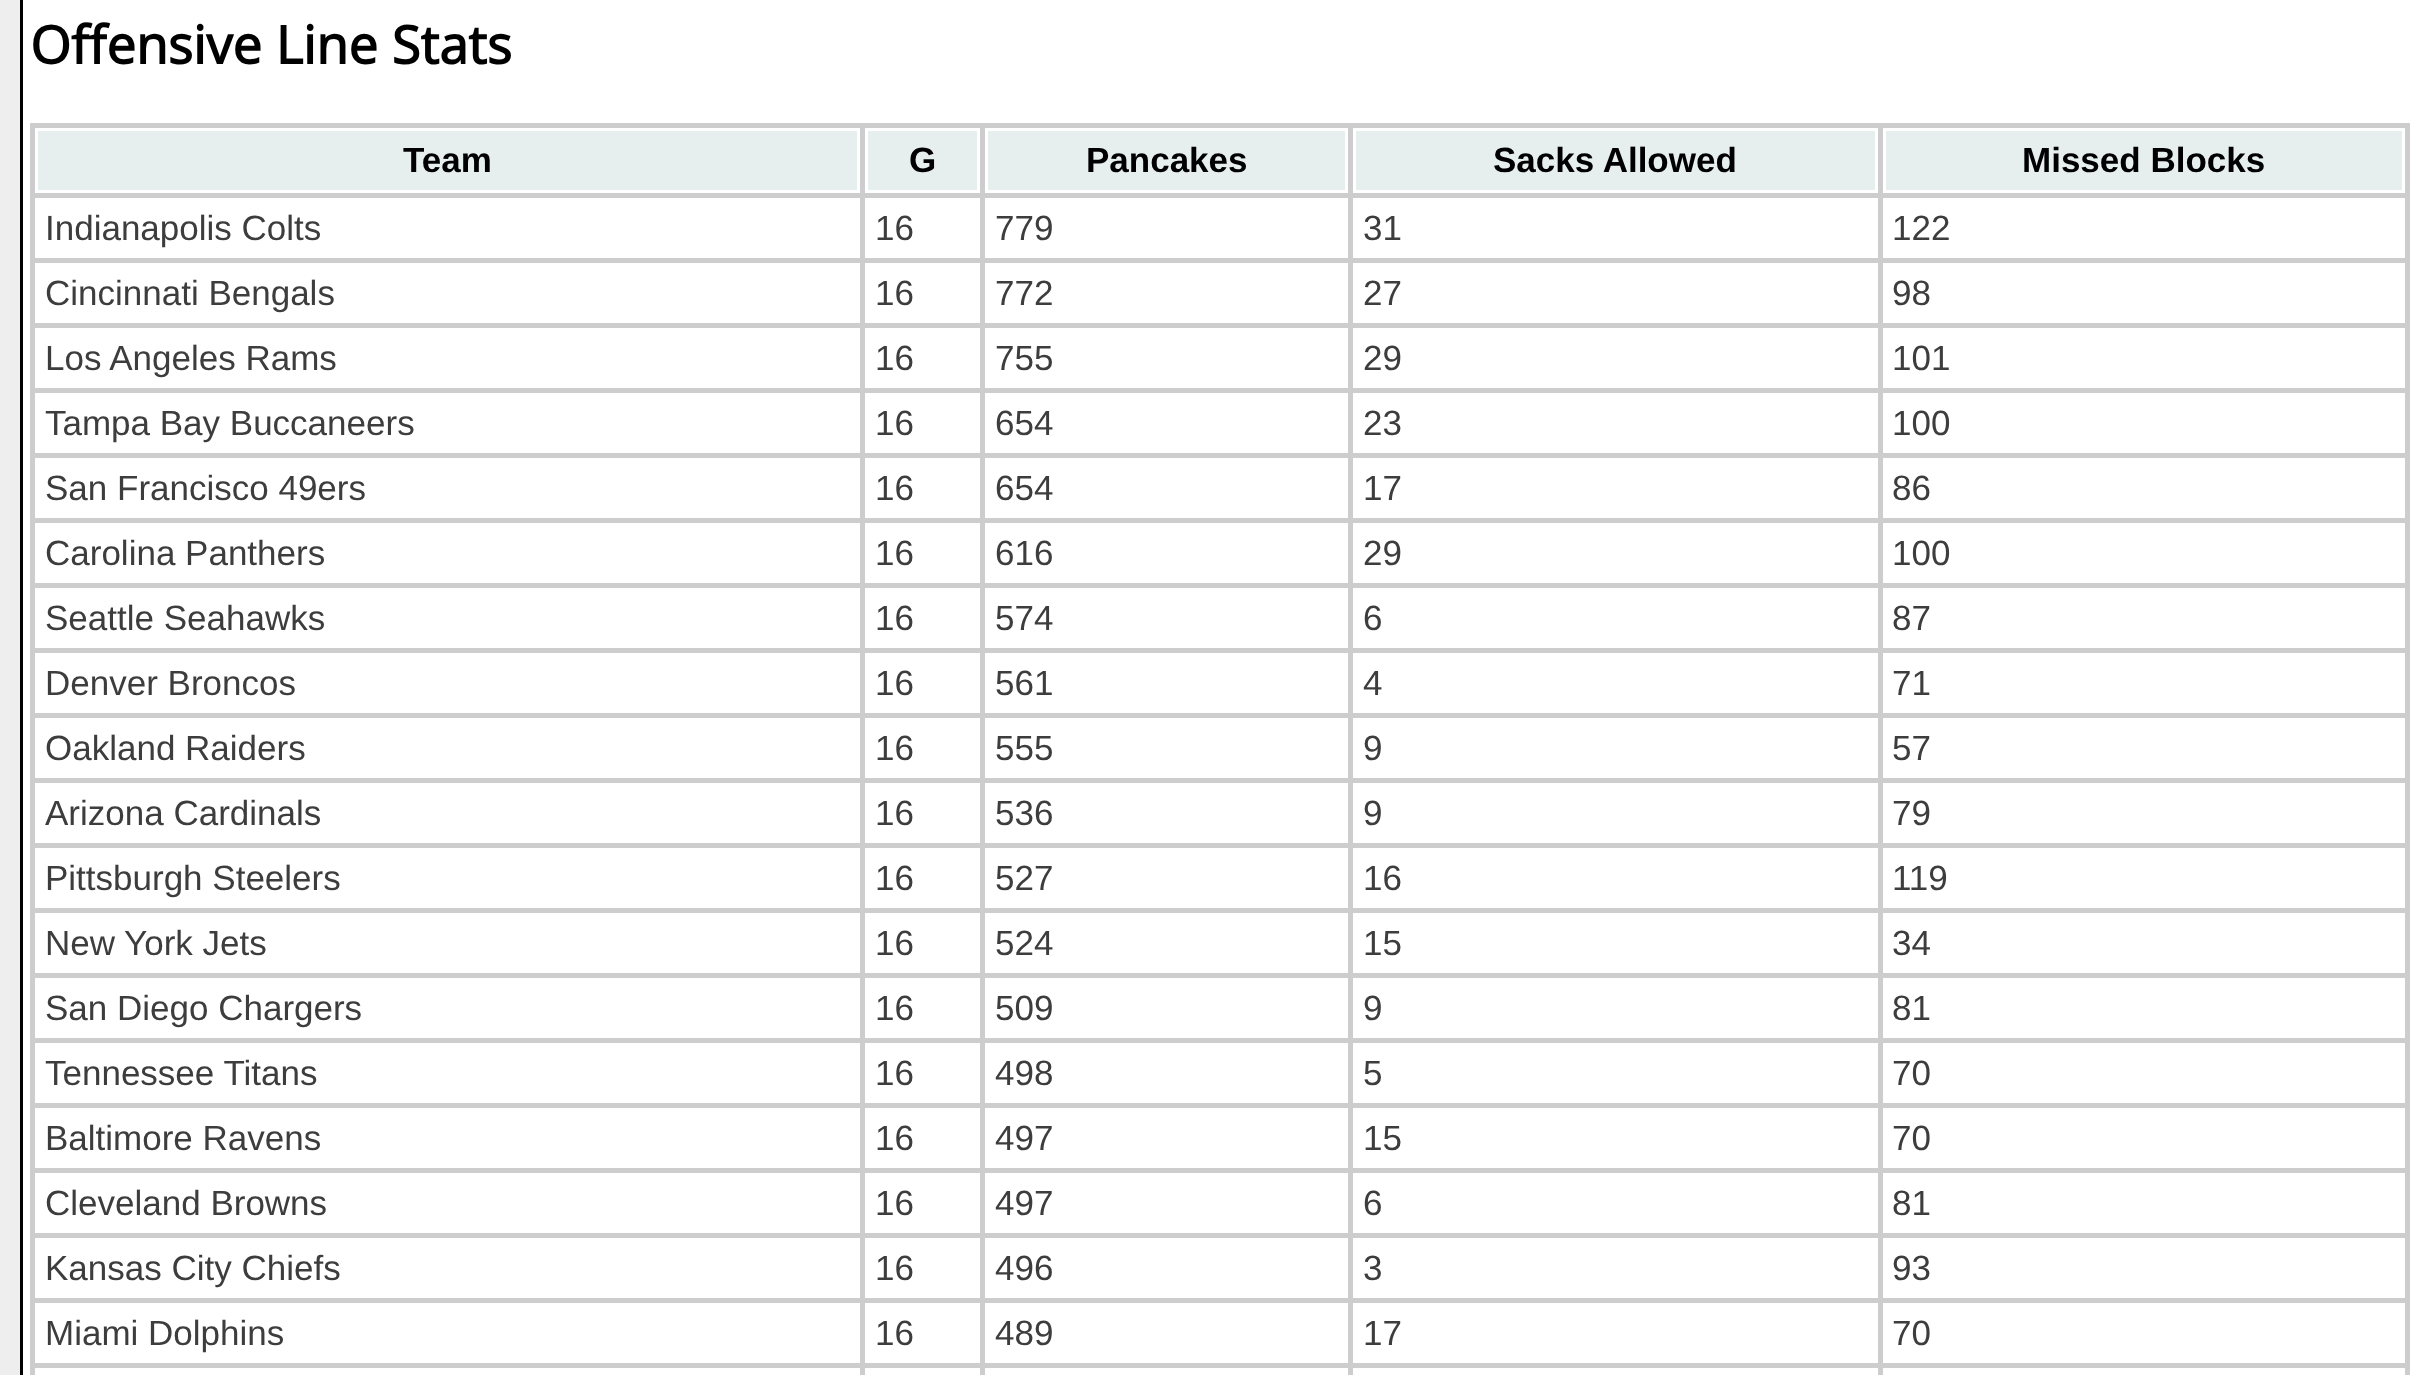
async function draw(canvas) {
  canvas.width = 2413;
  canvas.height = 1375;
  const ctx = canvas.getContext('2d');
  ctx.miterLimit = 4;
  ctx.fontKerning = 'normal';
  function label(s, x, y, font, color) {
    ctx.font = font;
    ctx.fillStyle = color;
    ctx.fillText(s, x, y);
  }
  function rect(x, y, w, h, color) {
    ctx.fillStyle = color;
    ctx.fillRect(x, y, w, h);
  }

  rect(0, 0, 2413, 1375, '#eee');
  ctx.fillStyle = '#fff';
  ctx.beginPath();
  ctx.rect(21.5, -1.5, 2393, 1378);
  ctx.fill();
  ctx.strokeStyle = '#000';
  ctx.lineWidth = 3;
  ctx.stroke();
  label('Offensive Line Stats', 30, 64, 'bold 52.5px Open Sans', '#000');
  rect(30, 123, 2380, 1252, '#cdcdcd');
  ctx.fillStyle = '#e6eeee';
  ctx.beginPath();
  ctx.rect(36.5, 129.5, 822, 62);
  ctx.fill();
  ctx.strokeStyle = '#fff';
  ctx.stroke();
  label('Team', 403, 172, 'bold 35px Liberation Sans', '#000');
  ctx.fillStyle = '#e6eeee';
  ctx.beginPath();
  ctx.rect(866.5, 129.5, 112, 62);
  ctx.fill();
  ctx.stroke();
  label('G', 909, 172, 'bold 35px Liberation Sans', '#000');
  ctx.fillStyle = '#e6eeee';
  ctx.beginPath();
  ctx.rect(986.5, 129.5, 360, 62);
  ctx.fill();
  ctx.stroke();
  label('Pancakes', 1086, 172, 'bold 35px Liberation Sans', '#000');
  ctx.fillStyle = '#e6eeee';
  ctx.beginPath();
  ctx.rect(1354.5, 129.5, 522, 62);
  ctx.fill();
  ctx.stroke();
  label('Sacks Allowed', 1493, 172, 'bold 35px Liberation Sans', '#000');
  ctx.fillStyle = '#e6eeee';
  ctx.beginPath();
  ctx.rect(1884.5, 129.5, 519, 62);
  ctx.fill();
  ctx.stroke();
  label('Missed Blocks', 2022, 172, 'bold 35px Liberation Sans', '#000');
  rect(35, 198, 825, 60, '#fff');
  label('Indianapolis Colts', 45, 240, '35px Liberation Sans', '#3d3d3d');
  rect(865, 198, 115, 60, '#fff');
  label('16', 875, 240, '35px Liberation Sans', '#3d3d3d');
  rect(985, 198, 363, 60, '#fff');
  label('779', 995, 240, '35px Liberation Sans', '#3d3d3d');
  rect(1353, 198, 525, 60, '#fff');
  label('31', 1363, 240, '35px Liberation Sans', '#3d3d3d');
  rect(1883, 198, 522, 60, '#fff');
  label('122', 1892, 240, '35px Liberation Sans', '#3d3d3d');
  rect(35, 263, 825, 60, '#fff');
  label('Cincinnati Bengals', 45, 305, '35px Liberation Sans', '#3d3d3d');
  rect(865, 263, 115, 60, '#fff');
  label('16', 875, 305, '35px Liberation Sans', '#3d3d3d');
  rect(985, 263, 363, 60, '#fff');
  label('772', 995, 305, '35px Liberation Sans', '#3d3d3d');
  rect(1353, 263, 525, 60, '#fff');
  label('27', 1363, 305, '35px Liberation Sans', '#3d3d3d');
  rect(1883, 263, 522, 60, '#fff');
  label('98', 1892, 305, '35px Liberation Sans', '#3d3d3d');
  rect(35, 328, 825, 60, '#fff');
  label('Los Angeles Rams', 45, 370, '35px Liberation Sans', '#3d3d3d');
  rect(865, 328, 115, 60, '#fff');
  label('16', 875, 370, '35px Liberation Sans', '#3d3d3d');
  rect(985, 328, 363, 60, '#fff');
  label('755', 995, 370, '35px Liberation Sans', '#3d3d3d');
  rect(1353, 328, 525, 60, '#fff');
  label('29', 1363, 370, '35px Liberation Sans', '#3d3d3d');
  rect(1883, 328, 522, 60, '#fff');
  label('101', 1892, 370, '35px Liberation Sans', '#3d3d3d');
  rect(35, 393, 825, 60, '#fff');
  label('Tampa Bay Buccaneers', 45, 435, '35px Liberation Sans', '#3d3d3d');
  rect(865, 393, 115, 60, '#fff');
  label('16', 875, 435, '35px Liberation Sans', '#3d3d3d');
  rect(985, 393, 363, 60, '#fff');
  label('654', 995, 435, '35px Liberation Sans', '#3d3d3d');
  rect(1353, 393, 525, 60, '#fff');
  label('23', 1363, 435, '35px Liberation Sans', '#3d3d3d');
  rect(1883, 393, 522, 60, '#fff');
  label('100', 1892, 435, '35px Liberation Sans', '#3d3d3d');
  rect(35, 458, 825, 60, '#fff');
  label('San Francisco 49ers', 45, 500, '35px Liberation Sans', '#3d3d3d');
  rect(865, 458, 115, 60, '#fff');
  label('16', 875, 500, '35px Liberation Sans', '#3d3d3d');
  rect(985, 458, 363, 60, '#fff');
  label('654', 995, 500, '35px Liberation Sans', '#3d3d3d');
  rect(1353, 458, 525, 60, '#fff');
  label('17', 1363, 500, '35px Liberation Sans', '#3d3d3d');
  rect(1883, 458, 522, 60, '#fff');
  label('86', 1892, 500, '35px Liberation Sans', '#3d3d3d');
  rect(35, 523, 825, 60, '#fff');
  label('Carolina Panthers', 45, 565, '35px Liberation Sans', '#3d3d3d');
  rect(865, 523, 115, 60, '#fff');
  label('16', 875, 565, '35px Liberation Sans', '#3d3d3d');
  rect(985, 523, 363, 60, '#fff');
  label('616', 995, 565, '35px Liberation Sans', '#3d3d3d');
  rect(1353, 523, 525, 60, '#fff');
  label('29', 1363, 565, '35px Liberation Sans', '#3d3d3d');
  rect(1883, 523, 522, 60, '#fff');
  label('100', 1892, 565, '35px Liberation Sans', '#3d3d3d');
  rect(35, 588, 825, 60, '#fff');
  label('Seattle Seahawks', 45, 630, '35px Liberation Sans', '#3d3d3d');
  rect(865, 588, 115, 60, '#fff');
  label('16', 875, 630, '35px Liberation Sans', '#3d3d3d');
  rect(985, 588, 363, 60, '#fff');
  label('574', 995, 630, '35px Liberation Sans', '#3d3d3d');
  rect(1353, 588, 525, 60, '#fff');
  label('6', 1363, 630, '35px Liberation Sans', '#3d3d3d');
  rect(1883, 588, 522, 60, '#fff');
  label('87', 1892, 630, '35px Liberation Sans', '#3d3d3d');
  rect(35, 653, 825, 60, '#fff');
  label('Denver Broncos', 45, 695, '35px Liberation Sans', '#3d3d3d');
  rect(865, 653, 115, 60, '#fff');
  label('16', 875, 695, '35px Liberation Sans', '#3d3d3d');
  rect(985, 653, 363, 60, '#fff');
  label('561', 995, 695, '35px Liberation Sans', '#3d3d3d');
  rect(1353, 653, 525, 60, '#fff');
  label('4', 1363, 695, '35px Liberation Sans', '#3d3d3d');
  rect(1883, 653, 522, 60, '#fff');
  label('71', 1892, 695, '35px Liberation Sans', '#3d3d3d');
  rect(35, 718, 825, 60, '#fff');
  label('Oakland Raiders', 45, 760, '35px Liberation Sans', '#3d3d3d');
  rect(865, 718, 115, 60, '#fff');
  label('16', 875, 760, '35px Liberation Sans', '#3d3d3d');
  rect(985, 718, 363, 60, '#fff');
  label('555', 995, 760, '35px Liberation Sans', '#3d3d3d');
  rect(1353, 718, 525, 60, '#fff');
  label('9', 1363, 760, '35px Liberation Sans', '#3d3d3d');
  rect(1883, 718, 522, 60, '#fff');
  label('57', 1892, 760, '35px Liberation Sans', '#3d3d3d');
  rect(35, 783, 825, 60, '#fff');
  label('Arizona Cardinals', 45, 825, '35px Liberation Sans', '#3d3d3d');
  rect(865, 783, 115, 60, '#fff');
  label('16', 875, 825, '35px Liberation Sans', '#3d3d3d');
  rect(985, 783, 363, 60, '#fff');
  label('536', 995, 825, '35px Liberation Sans', '#3d3d3d');
  rect(1353, 783, 525, 60, '#fff');
  label('9', 1363, 825, '35px Liberation Sans', '#3d3d3d');
  rect(1883, 783, 522, 60, '#fff');
  label('79', 1892, 825, '35px Liberation Sans', '#3d3d3d');
  rect(35, 848, 825, 60, '#fff');
  label('Pittsburgh Steelers', 45, 890, '35px Liberation Sans', '#3d3d3d');
  rect(865, 848, 115, 60, '#fff');
  label('16', 875, 890, '35px Liberation Sans', '#3d3d3d');
  rect(985, 848, 363, 60, '#fff');
  label('527', 995, 890, '35px Liberation Sans', '#3d3d3d');
  rect(1353, 848, 525, 60, '#fff');
  label('16', 1363, 890, '35px Liberation Sans', '#3d3d3d');
  rect(1883, 848, 522, 60, '#fff');
  label('119', 1892, 890, '35px Liberation Sans', '#3d3d3d');
  rect(35, 913, 825, 60, '#fff');
  label('New York Jets', 45, 955, '35px Liberation Sans', '#3d3d3d');
  rect(865, 913, 115, 60, '#fff');
  label('16', 875, 955, '35px Liberation Sans', '#3d3d3d');
  rect(985, 913, 363, 60, '#fff');
  label('524', 995, 955, '35px Liberation Sans', '#3d3d3d');
  rect(1353, 913, 525, 60, '#fff');
  label('15', 1363, 955, '35px Liberation Sans', '#3d3d3d');
  rect(1883, 913, 522, 60, '#fff');
  label('34', 1892, 955, '35px Liberation Sans', '#3d3d3d');
  rect(35, 978, 825, 60, '#fff');
  label('San Diego Chargers', 45, 1020, '35px Liberation Sans', '#3d3d3d');
  rect(865, 978, 115, 60, '#fff');
  label('16', 875, 1020, '35px Liberation Sans', '#3d3d3d');
  rect(985, 978, 363, 60, '#fff');
  label('509', 995, 1020, '35px Liberation Sans', '#3d3d3d');
  rect(1353, 978, 525, 60, '#fff');
  label('9', 1363, 1020, '35px Liberation Sans', '#3d3d3d');
  rect(1883, 978, 522, 60, '#fff');
  label('81', 1892, 1020, '35px Liberation Sans', '#3d3d3d');
  rect(35, 1043, 825, 60, '#fff');
  label('Tennessee Titans', 45, 1085, '35px Liberation Sans', '#3d3d3d');
  rect(865, 1043, 115, 60, '#fff');
  label('16', 875, 1085, '35px Liberation Sans', '#3d3d3d');
  rect(985, 1043, 363, 60, '#fff');
  label('498', 995, 1085, '35px Liberation Sans', '#3d3d3d');
  rect(1353, 1043, 525, 60, '#fff');
  label('5', 1363, 1085, '35px Liberation Sans', '#3d3d3d');
  rect(1883, 1043, 522, 60, '#fff');
  label('70', 1892, 1085, '35px Liberation Sans', '#3d3d3d');
  rect(35, 1108, 825, 60, '#fff');
  label('Baltimore Ravens', 45, 1150, '35px Liberation Sans', '#3d3d3d');
  rect(865, 1108, 115, 60, '#fff');
  label('16', 875, 1150, '35px Liberation Sans', '#3d3d3d');
  rect(985, 1108, 363, 60, '#fff');
  label('497', 995, 1150, '35px Liberation Sans', '#3d3d3d');
  rect(1353, 1108, 525, 60, '#fff');
  label('15', 1363, 1150, '35px Liberation Sans', '#3d3d3d');
  rect(1883, 1108, 522, 60, '#fff');
  label('70', 1892, 1150, '35px Liberation Sans', '#3d3d3d');
  rect(35, 1173, 825, 60, '#fff');
  label('Cleveland Browns', 45, 1215, '35px Liberation Sans', '#3d3d3d');
  rect(865, 1173, 115, 60, '#fff');
  label('16', 875, 1215, '35px Liberation Sans', '#3d3d3d');
  rect(985, 1173, 363, 60, '#fff');
  label('497', 995, 1215, '35px Liberation Sans', '#3d3d3d');
  rect(1353, 1173, 525, 60, '#fff');
  label('6', 1363, 1215, '35px Liberation Sans', '#3d3d3d');
  rect(1883, 1173, 522, 60, '#fff');
  label('81', 1892, 1215, '35px Liberation Sans', '#3d3d3d');
  rect(35, 1238, 825, 60, '#fff');
  label('Kansas City Chiefs', 45, 1280, '35px Liberation Sans', '#3d3d3d');
  rect(865, 1238, 115, 60, '#fff');
  label('16', 875, 1280, '35px Liberation Sans', '#3d3d3d');
  rect(985, 1238, 363, 60, '#fff');
  label('496', 995, 1280, '35px Liberation Sans', '#3d3d3d');
  rect(1353, 1238, 525, 60, '#fff');
  label('3', 1363, 1280, '35px Liberation Sans', '#3d3d3d');
  rect(1883, 1238, 522, 60, '#fff');
  label('93', 1892, 1280, '35px Liberation Sans', '#3d3d3d');
  rect(35, 1303, 825, 60, '#fff');
  label('Miami Dolphins', 45, 1345, '35px Liberation Sans', '#3d3d3d');
  rect(865, 1303, 115, 60, '#fff');
  label('16', 875, 1345, '35px Liberation Sans', '#3d3d3d');
  rect(985, 1303, 363, 60, '#fff');
  label('489', 995, 1345, '35px Liberation Sans', '#3d3d3d');
  rect(1353, 1303, 525, 60, '#fff');
  label('17', 1363, 1345, '35px Liberation Sans', '#3d3d3d');
  rect(1883, 1303, 522, 60, '#fff');
  label('70', 1892, 1345, '35px Liberation Sans', '#3d3d3d');
  rect(35, 1368, 825, 7, '#fff');
  rect(865, 1368, 115, 7, '#fff');
  rect(985, 1368, 363, 7, '#fff');
  rect(1353, 1368, 525, 7, '#fff');
  rect(1883, 1368, 522, 7, '#fff');
}

draw(document.querySelector('canvas'));
